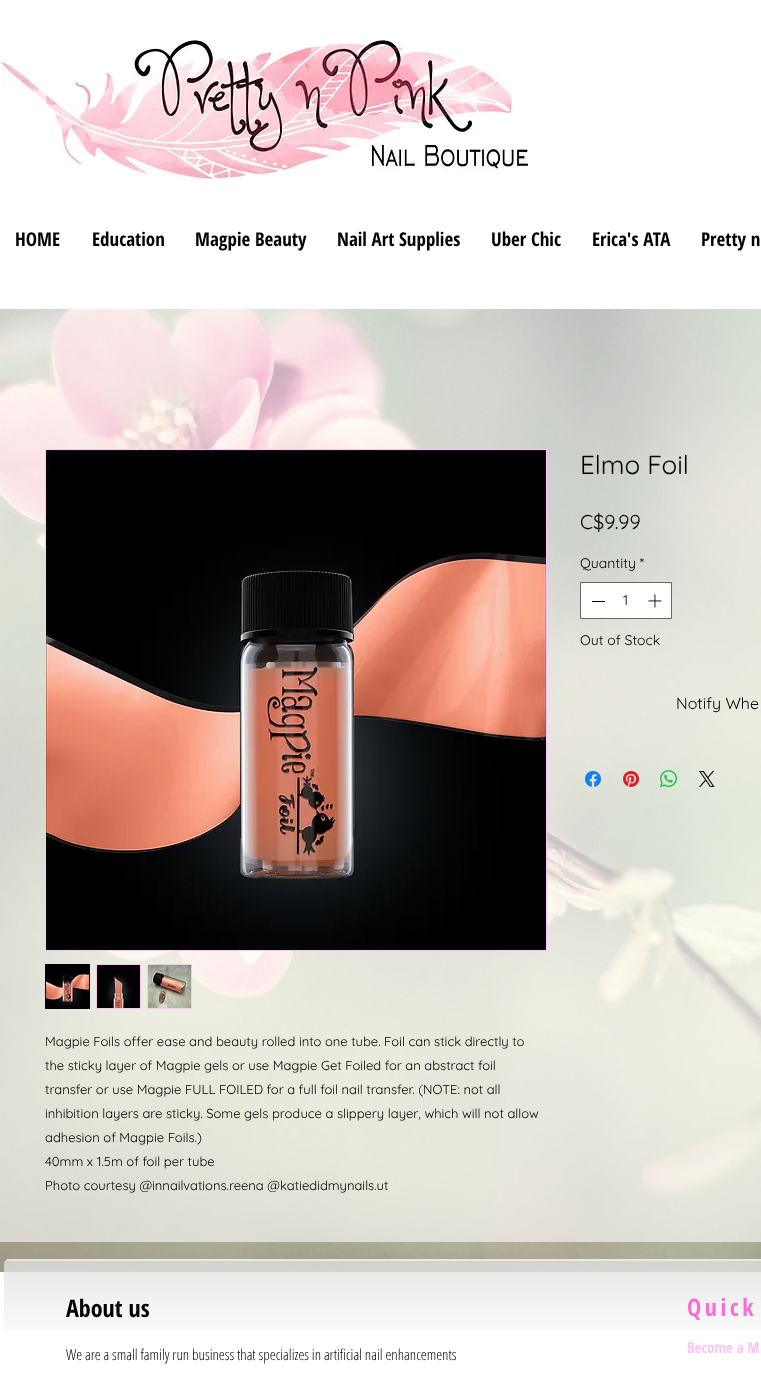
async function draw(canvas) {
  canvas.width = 761;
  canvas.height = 1377;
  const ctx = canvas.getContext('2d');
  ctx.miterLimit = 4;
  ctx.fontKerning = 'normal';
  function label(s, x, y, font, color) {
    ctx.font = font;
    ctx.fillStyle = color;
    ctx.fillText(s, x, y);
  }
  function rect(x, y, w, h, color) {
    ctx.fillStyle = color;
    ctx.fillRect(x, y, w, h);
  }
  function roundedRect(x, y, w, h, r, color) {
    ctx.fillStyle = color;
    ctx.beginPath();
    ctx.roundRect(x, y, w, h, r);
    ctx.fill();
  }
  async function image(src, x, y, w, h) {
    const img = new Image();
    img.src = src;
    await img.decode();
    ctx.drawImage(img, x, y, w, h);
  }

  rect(0, 0, 761, 1377, '#fff');
  await image('assets/img1.png', 0, 40, 528, 139);
  label('HOME', 15, 246, 'bold 19px Open Sans Condensed', '#000');
  label('Education', 92, 246, 'bold 19px Open Sans Condensed', '#000');
  label('Magpie Beauty', 195, 246, 'bold 19px Open Sans Condensed', '#000');
  label('Nail Art Supplies', 337, 246, 'bold 19px Open Sans Condensed', '#000');
  label('Uber Chic', 491, 246, 'bold 19px Open Sans Condensed', '#000');
  label('Erica\'s ATA', 592, 246, 'bold 19px Open Sans Condensed', '#000');
  label('Pretty n', 701, 246, 'bold 19px Open Sans Condensed', '#000');
  await image('assets/img12.png', 0, 309, 761, 963);
  rect(0, 309, 761, 933, '#ffffff99');
  label('Elmo Foil', 580, 474, '26px Quicksand', '#000');
  label('C$9.99', 580, 529, '20px Quicksand', '#000');
  label('Quantity *', 580, 568, '14px Quicksand', '#000');
  ctx.fillStyle = '#fff';
  ctx.beginPath();
  ctx.rect(580.5, 582.5, 91, 36);
  ctx.fill();
  ctx.strokeStyle = '#666';
  ctx.stroke();
  rect(592, 601, 13, 1, '#000');
  label('1', 623, 605, '14px Quicksand', '#000');
  await image('assets/img2.png', 648, 594, 14, 14);
  label('Out of Stock', 580, 645, '14px Quicksand', '#000');
  label('Notify Whe', 676, 709, '16px Quicksand', '#000');
  await image('assets/img3.png', 585, 771, 16, 16);
  await image('assets/img4.png', 623, 771, 16, 16);
  await image('assets/img5.png', 660, 770, 17, 17);
  await image('assets/img6.png', 699, 771, 16, 16);
  ctx.strokeStyle = '#fec4f8';
  ctx.strokeRect(45.5, 449.5, 501, 501);
  await image('assets/img7.png', 46, 450, 500, 500);
  ctx.strokeStyle = '#000';
  ctx.strokeRect(45.5, 964.5, 44, 44);
  await image('assets/img8.png', 46, 965, 43, 43);
  rect(96, 964, 45, 45, '#fec4f8');
  await image('assets/img9.png', 97, 965, 43, 43);
  rect(147, 964, 45, 45, '#fec4f8');
  await image('assets/img10.png', 148, 965, 43, 43);
  label('Magpie Foils offer ease and beauty rolled into one tube. Foil can stick directly to', 45, 1046, '13px Quicksand', '#000');
  label('the sticky layer of Magpie gels or use Magpie Get Foiled for an abstract foil', 45, 1070, '13px Quicksand', '#000');
  label('transfer or use Magpie FULL FOILED for a full foil nail transfer. (NOTE: not all', 45, 1094, '13px Quicksand', '#000');
  label('inhibition layers are sticky. Some gels produce a slippery layer, which will not allow', 45, 1118, '13px Quicksand', '#000');
  label('adhesion of Magpie Foils.)', 45, 1142, '13px Quicksand', '#000');
  label('40mm x 1.5m of foil per tube', 45, 1166, '13px Quicksand', '#000');
  label('Photo courtesy @innailvations.reena @katiedidmynails.ut', 45, 1190, '13px Quicksand', '#000');
  roundedRect(4, 1259, 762, 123, 5, '#ffffffbf');
  await image('assets/img11.png', 4, 1261, 757, 69);
  label('About us', 66, 1317, 'bold 24px Open Sans Condensed', '#000');
  label('We are a small family run business that specializes in artificial nail enhancements', 66, 1360, '300 15px Open Sans Condensed', '#000');
  ctx.letterSpacing = '3.5px';
  label('Quick', 687, 1316, 'bold 24px Open Sans Condensed', '#f76ed7');
  ctx.letterSpacing = '0px';
  label('Become a M', 687, 1353, 'bold 15px Open Sans Condensed', '#fec4f8');
}

draw(document.querySelector('canvas'));
